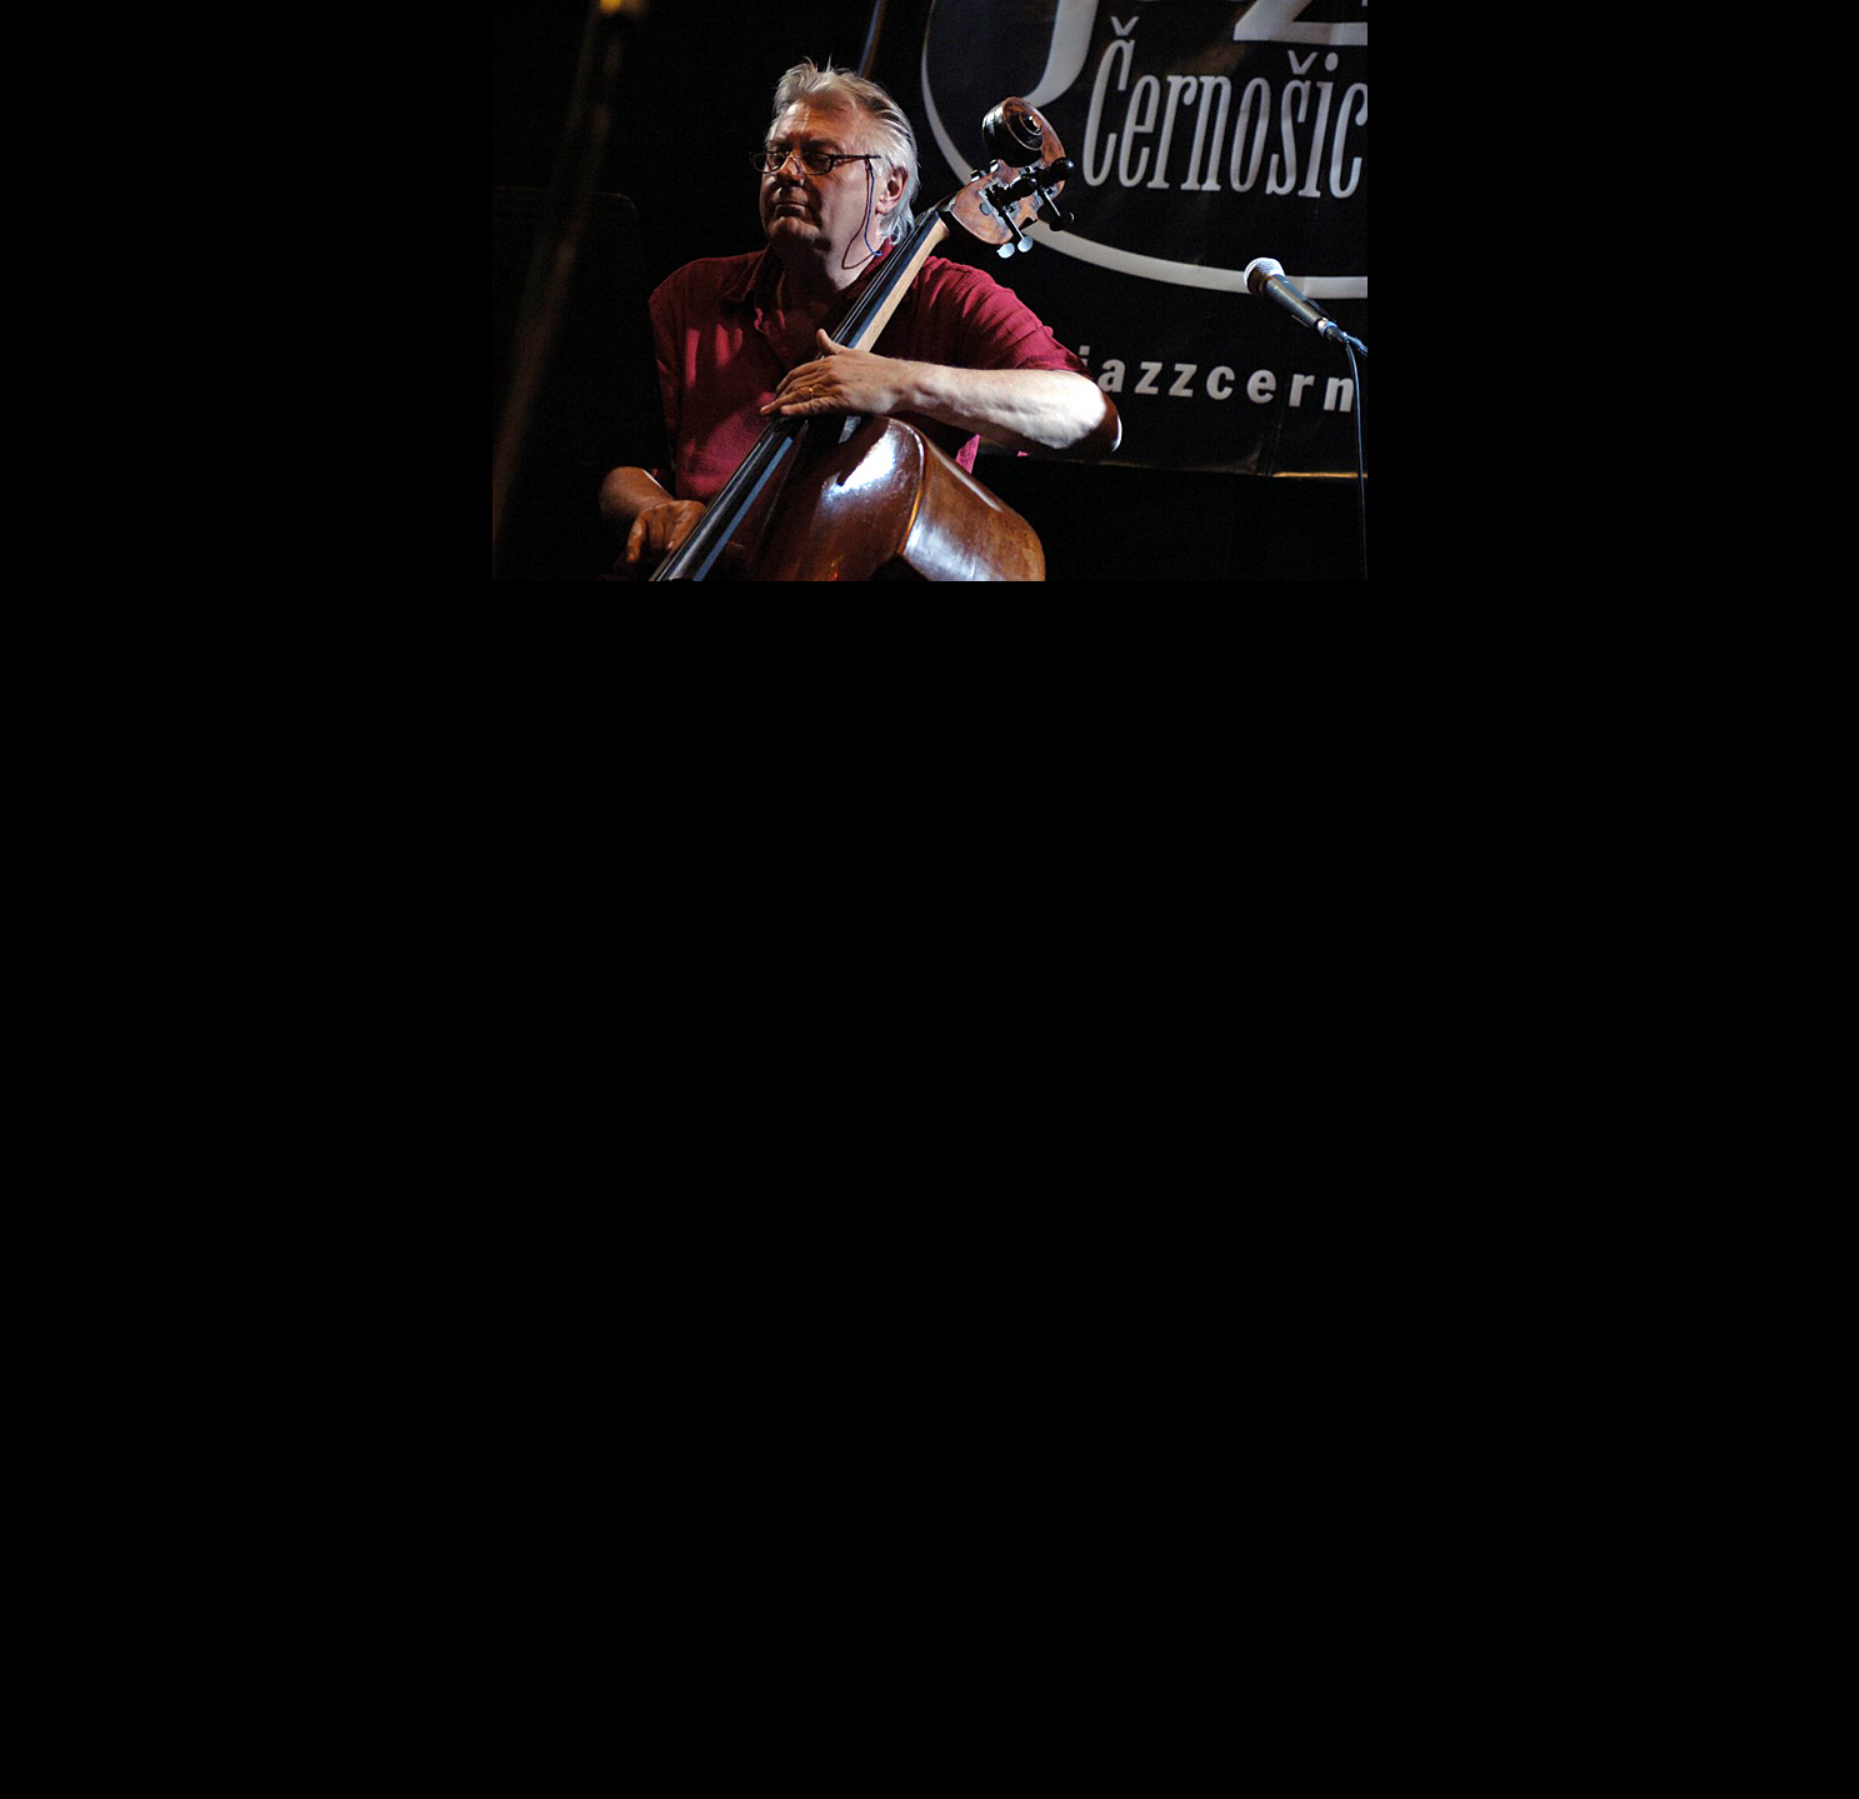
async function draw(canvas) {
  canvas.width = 1859;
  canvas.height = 1799;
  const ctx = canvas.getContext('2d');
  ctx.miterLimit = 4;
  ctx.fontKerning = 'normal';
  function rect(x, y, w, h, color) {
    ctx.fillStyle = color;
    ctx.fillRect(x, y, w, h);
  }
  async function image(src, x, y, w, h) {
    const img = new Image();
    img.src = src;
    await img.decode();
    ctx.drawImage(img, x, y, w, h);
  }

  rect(0, 0, 1859, 1799, '#000');
  await image('assets/img1.png', 492, 0, 876, 582);
}

draw(document.querySelector('canvas'));
